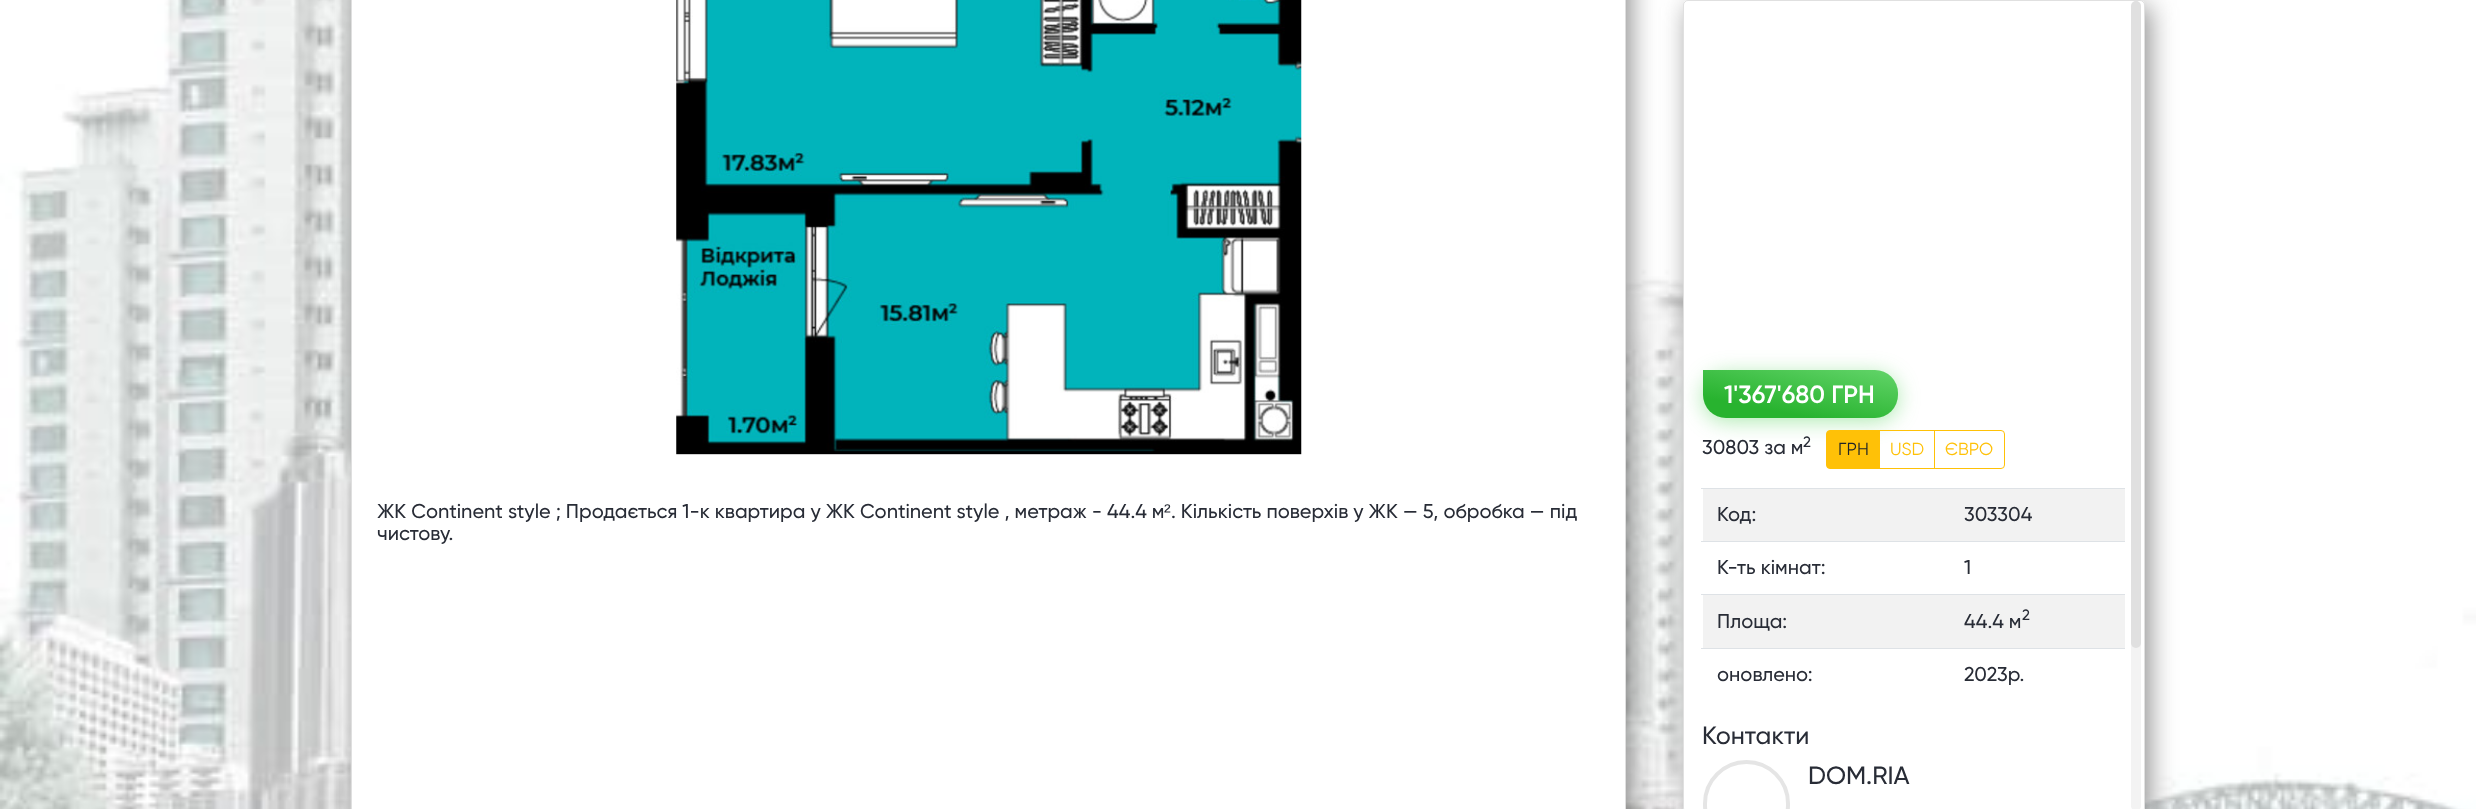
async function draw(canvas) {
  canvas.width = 2476;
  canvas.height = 809;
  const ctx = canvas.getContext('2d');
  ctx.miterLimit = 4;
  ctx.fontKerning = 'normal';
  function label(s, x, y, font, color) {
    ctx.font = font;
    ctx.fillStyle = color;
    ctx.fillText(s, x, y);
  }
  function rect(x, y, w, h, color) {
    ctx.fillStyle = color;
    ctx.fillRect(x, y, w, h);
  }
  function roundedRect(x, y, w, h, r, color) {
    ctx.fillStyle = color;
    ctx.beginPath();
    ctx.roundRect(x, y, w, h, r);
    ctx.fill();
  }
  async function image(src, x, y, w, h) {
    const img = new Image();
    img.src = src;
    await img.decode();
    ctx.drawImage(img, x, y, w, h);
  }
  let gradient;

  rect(0, 0, 2476, 809, '#fff');
  await image('assets/img1.png', 0, 0, 2476, 809);
  ctx.fillStyle = '#565656a8';
  ctx.filter = 'blur(13px)';
  ctx.beginPath();
  ctx.roundRect(356, -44, 1275, 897, 5);
  ctx.fill();
  ctx.filter = 'none';
  ctx.fillStyle = '#fff';
  ctx.beginPath();
  ctx.rect(351.5, -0.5, 1274, 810);
  ctx.fill();
  ctx.strokeStyle = '#dfdfdf';
  ctx.stroke();
  await image('assets/img2.png', 676, 0, 626, 455);
  label('ЖК Continent style ; Продається 1-к квартира у ЖК Continent style , метраж - 44.4 м', 377, 518, '500 20px Gilroy', '#282c36');
  label('²', 1164, 518, '20px Liberation Sans', '#282c36');
  label('. Кількість поверхів у ЖК — 5, обробка — під', 1171, 518, '500 20px Gilroy', '#282c36');
  label('чистову.', 377, 540, '500 20px Gilroy', '#282c36');
  ctx.fillStyle = '#565656a8';
  ctx.filter = 'blur(13px)';
  ctx.beginPath();
  ctx.roundRect(1688, 6, 462, 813, 5);
  ctx.fill();
  ctx.filter = 'none';
  roundedRect(1683, 0, 462, 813, 5, '#fff');
  ctx.beginPath();
  ctx.roundRect(1683.5, 0.5, 461, 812, 4.5);
  ctx.strokeStyle = '#0000001f';
  ctx.stroke();
  ctx.fillStyle = '#2cc73466';
  ctx.filter = 'blur(10.5px)';
  ctx.beginPath();
  ctx.roundRect(1703, 374, 195, 47, 23);
  ctx.fill();
  ctx.filter = 'none';
  gradient = ctx.createLinearGradient(1792, 435, 1808, 352);
  gradient.addColorStop(0.24, '#28b32f');
  gradient.addColorStop(0.96, '#60d367');
  ctx.fillStyle = gradient;
  ctx.beginPath();
  ctx.roundRect(1703, 370, 195, 48, [0, 23, 23, 23]);
  ctx.fill();
  label('1\'367\'680 ГРН', 1724, 403, '600 25px Gilroy', '#fff');
  label('30803 за м', 1702, 454, '500 20px Gilroy', '#282c36');
  label('2', 1803, 447, '500 15px Gilroy', '#282c36');
  ctx.strokeStyle = '#ffc107';
  ctx.strokeRect(1879.5, 430.5, 55, 38);
  ctx.fillStyle = '#ffc107';
  ctx.beginPath();
  ctx.roundRect(1826.5, 430.5, 53, 38, [3.5, 0, 0, 3.5]);
  ctx.fill();
  ctx.stroke();
  label('ГРН', 1838, 455, '17.5px Gilroy', '#212529');
  label('USD', 1890, 455, '17.5px Gilroy', '#ffc107');
  ctx.beginPath();
  ctx.roundRect(1934.5, 430.5, 70, 38, [0, 3.5, 3.5, 0]);
  ctx.stroke();
  label('ЄВРО', 1945, 455, '17.5px Gilroy', '#ffc107');
  rect(1703, 489, 422, 52, '#f2f2f2');
  label('Код:', 1717, 521, '500 20px Gilroy', '#282c36');
  rect(1701, 488, 424, 1, '#dee2e6');
  label('303304', 1964, 521, '500 20px Gilroy', '#282c36');
  label('К-ть кімнат:', 1717, 574, '500 20px Gilroy', '#282c36');
  rect(1701, 541, 424, 1, '#dee2e6');
  label('1', 1964, 574, '500 20px Gilroy', '#282c36');
  rect(1703, 595, 422, 53, '#f2f2f2');
  label('Площа:', 1717, 628, '500 20px Gilroy', '#282c36');
  rect(1701, 594, 424, 1, '#dee2e6');
  label('44.4 м', 1964, 628, '500 20px Gilroy', '#282c36');
  label('2', 2022, 620, '500 15px Gilroy', '#282c36');
  label('оновлено:', 1717, 681, '500 20px Gilroy', '#282c36');
  rect(1701, 648, 424, 1, '#dee2e6');
  label('2023р.', 1964, 681, '500 20px Gilroy', '#282c36');
  label('Контакти', 1702, 744, '500 25px Gilroy', '#282c36');
  ctx.beginPath();
  ctx.roundRect(1705, 762, 83, 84, 41.5);
  ctx.strokeStyle = '#e5e5e5';
  ctx.lineWidth = 4;
  ctx.stroke();
  label('DOM.RIA', 1808, 784, '500 25px Gilroy', '#282c36');
  roundedRect(2131, 1, 10, 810, 5, '#f3f3f3');
  roundedRect(2131, 1, 10, 647, 5, '#c2c2c266');
}

draw(document.querySelector('canvas'));
